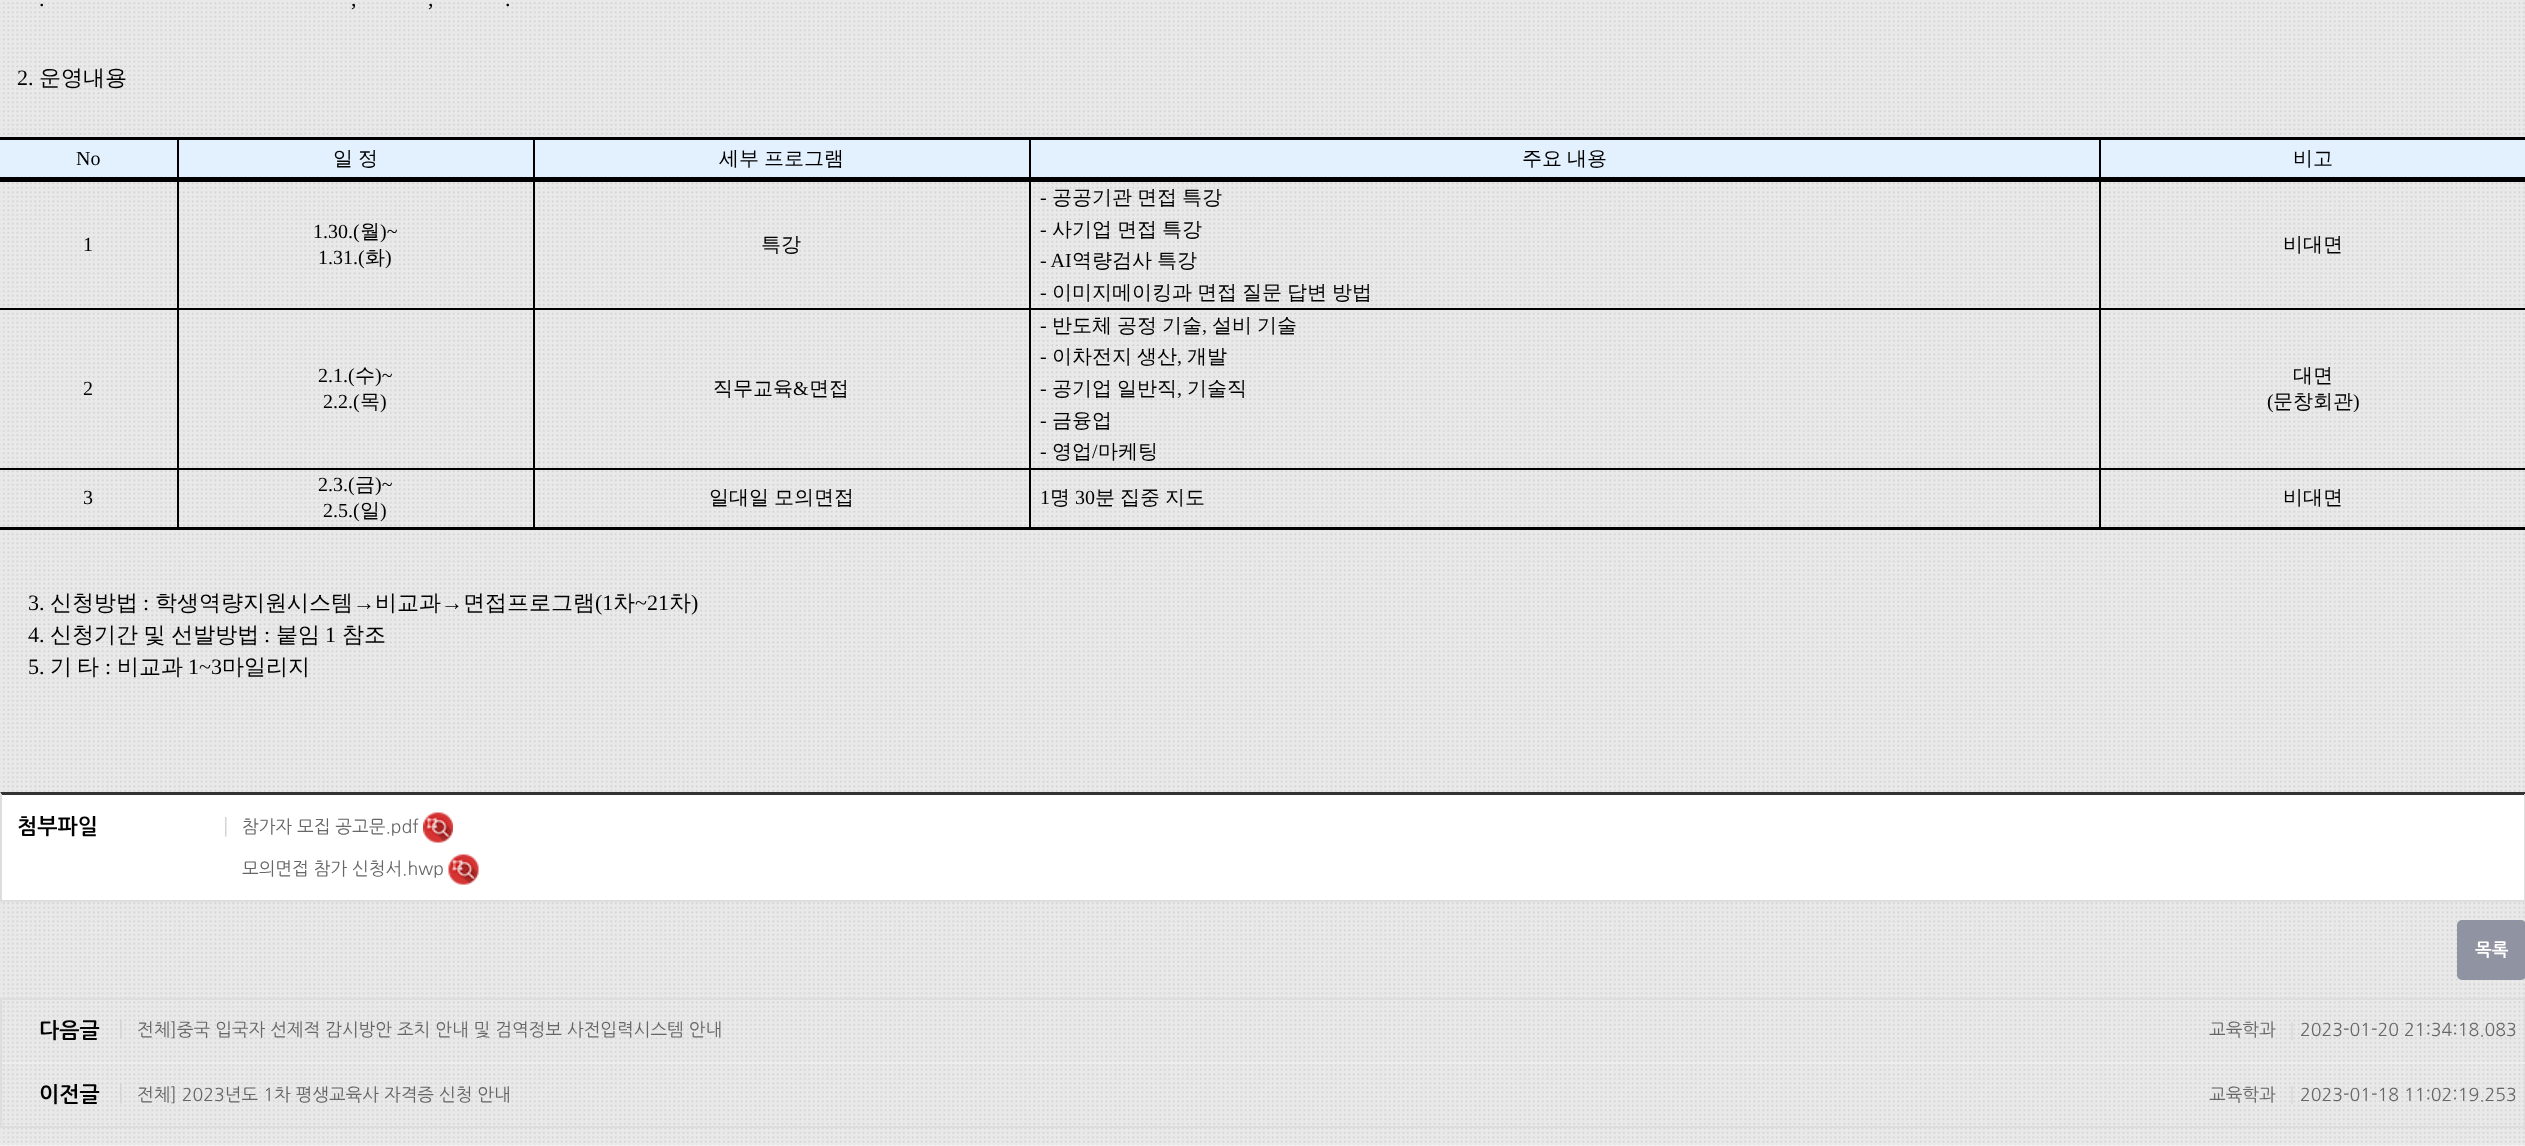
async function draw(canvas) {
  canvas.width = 2525;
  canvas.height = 1146;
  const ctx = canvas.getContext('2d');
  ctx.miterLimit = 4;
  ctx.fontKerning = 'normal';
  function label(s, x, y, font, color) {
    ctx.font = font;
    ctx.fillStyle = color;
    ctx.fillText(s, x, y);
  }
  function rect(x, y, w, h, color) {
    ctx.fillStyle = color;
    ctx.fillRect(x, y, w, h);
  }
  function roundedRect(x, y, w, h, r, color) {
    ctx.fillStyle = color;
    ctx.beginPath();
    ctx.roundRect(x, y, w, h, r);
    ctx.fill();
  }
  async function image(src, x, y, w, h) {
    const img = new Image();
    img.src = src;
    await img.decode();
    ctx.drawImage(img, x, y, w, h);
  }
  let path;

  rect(0, 0, 2525, 1146, '#fff');
  await image('assets/img1.png', 0, 0, 2525, 1146);
  label('.', 39, 6, '22px Liberation Serif', '#000');
  label(',', 351, 6, '22px Liberation Serif', '#000');
  label(',', 428, 6, '22px Liberation Serif', '#000');
  label('.', 505, 6, '22px Liberation Serif', '#000');
  label('2.', 17, 85, '22px Liberation Serif', '#000');
  label('운영내용', 39, 85, '500 22px WenQuanYi Zen Hei', '#000');
  rect(0, 140, 177, 37, '#e3f1ff');
  label('No', 76, 165, '20px Liberation Serif', '#000');
  rect(179, 140, 354, 37, '#e3f1ff');
  ctx.wordSpacing = '-1px';
  label('일 정', 333, 165, '500 20px WenQuanYi Zen Hei', '#000');
  rect(535, 140, 494, 37, '#e3f1ff');
  label('세부 프로그램', 719, 165, '500 20px WenQuanYi Zen Hei', '#000');
  rect(1031, 140, 1068, 37, '#e3f1ff');
  label('주요 내용', 1522, 165, '500 20px WenQuanYi Zen Hei', '#000');
  rect(2101, 140, 424, 37, '#e3f1ff');
  rect(2099, 308, 426, 2, '#000');
  rect(2099, 468, 426, 2, '#000');
  rect(2099, 468, 2, 62, '#000');
  rect(1029, 468, 1071, 2, '#000');
  rect(2099, 308, 2, 162, '#000');
  rect(1029, 308, 1071, 2, '#000');
  rect(1029, 468, 2, 62, '#000');
  rect(533, 468, 498, 2, '#000');
  rect(1029, 341, 2, 129, '#000');
  rect(1029, 308, 2, 34, '#000');
  rect(533, 308, 498, 2, '#000');
  rect(533, 468, 2, 62, '#000');
  rect(177, 468, 357, 2, '#000');
  rect(533, 308, 2, 162, '#000');
  rect(177, 308, 357, 2, '#000');
  rect(177, 468, 2, 62, '#000');
  rect(0, 468, 179, 2, '#000');
  rect(177, 308, 2, 162, '#000');
  rect(0, 308, 179, 2, '#000');
  rect(177, 137, 2, 172, '#000');
  rect(533, 137, 2, 172, '#000');
  rect(2099, 137, 2, 172, '#000');
  rect(1029, 137, 2, 172, '#000');
  rect(0, 137, 2525, 3, '#000');
  ctx.wordSpacing = '0px';
  label('비고', 2293, 165, '500 20px WenQuanYi Zen Hei', '#000');
  label('-', 1040, 204, '20px Liberation Serif', '#000');
  ctx.wordSpacing = '-1px';
  label('공공기관 면접 특강', 1052, 204, '500 20px WenQuanYi Zen Hei', '#000');
  ctx.wordSpacing = '0px';
  label('1', 83, 251, '20px Liberation Serif', '#000');
  label('1.30.(', 313, 238, '20px Liberation Serif', '#000');
  label('월', 360, 238, '500 20px WenQuanYi Zen Hei', '#000');
  label(')~', 380, 238, '20px Liberation Serif', '#000');
  label('1.31.(', 318, 264, '20px Liberation Serif', '#000');
  label('화', 365, 264, '500 20px WenQuanYi Zen Hei', '#000');
  label(')', 385, 264, '20px Liberation Serif', '#000');
  label('특강', 761, 251, '500 20px WenQuanYi Zen Hei', '#000');
  rect(0, 177, 2525, 5, '#000');
  label('비대면', 2283, 251, '500 20px WenQuanYi Zen Hei', '#000');
  label('-', 1040, 236, '20px Liberation Serif', '#000');
  ctx.wordSpacing = '-1px';
  label('사기업 면접 특강', 1052, 236, '500 20px WenQuanYi Zen Hei', '#000');
  ctx.wordSpacing = '0px';
  label('- AI', 1040, 267, '20px Liberation Serif', '#000');
  ctx.wordSpacing = '-1px';
  label('역량검사 특강', 1072, 267, '500 20px WenQuanYi Zen Hei', '#000');
  ctx.wordSpacing = '0px';
  label('-', 1040, 299, '20px Liberation Serif', '#000');
  ctx.wordSpacing = '-1px';
  label('이미지메이킹과 면접 질문 답변 방법', 1052, 299, '500 20px WenQuanYi Zen Hei', '#000');
  ctx.wordSpacing = '0px';
  label('-', 1040, 332, '20px Liberation Serif', '#000');
  ctx.wordSpacing = '-1px';
  label('반도체 공정 기술', 1052, 332, '500 20px WenQuanYi Zen Hei', '#000');
  label('설비 기술', 1212, 332, '500 20px WenQuanYi Zen Hei', '#000');
  ctx.wordSpacing = '0px';
  label(',', 1202, 332, '20px Liberation Serif', '#000');
  label('2', 83, 395, '20px Liberation Serif', '#000');
  label('2.1.(', 318, 382, '20px Liberation Serif', '#000');
  label('수', 355, 382, '500 20px WenQuanYi Zen Hei', '#000');
  label(')~', 375, 382, '20px Liberation Serif', '#000');
  label('2.2.(', 323, 408, '20px Liberation Serif', '#000');
  label('목', 360, 408, '500 20px WenQuanYi Zen Hei', '#000');
  label(')', 380, 408, '20px Liberation Serif', '#000');
  label('직무교육', 713, 395, '500 20px WenQuanYi Zen Hei', '#000');
  label('&', 793, 395, '20px Liberation Serif', '#000');
  label('면접', 809, 395, '500 20px WenQuanYi Zen Hei', '#000');
  label('대면', 2293, 382, '500 20px WenQuanYi Zen Hei', '#000');
  label('(', 2267, 408, '20px Liberation Serif', '#000');
  label('문창회관', 2273, 408, '500 20px WenQuanYi Zen Hei', '#000');
  label(')', 2353, 408, '20px Liberation Serif', '#000');
  label('-', 1040, 363, '20px Liberation Serif', '#000');
  ctx.wordSpacing = '-1px';
  label('이차전지 생산', 1052, 363, '500 20px WenQuanYi Zen Hei', '#000');
  ctx.wordSpacing = '0px';
  label('개발', 1187, 363, '500 20px WenQuanYi Zen Hei', '#000');
  label(',', 1177, 363, '20px Liberation Serif', '#000');
  label('-', 1040, 395, '20px Liberation Serif', '#000');
  ctx.wordSpacing = '-1px';
  label('공기업 일반직', 1052, 395, '500 20px WenQuanYi Zen Hei', '#000');
  ctx.wordSpacing = '0px';
  label('기술직', 1187, 395, '500 20px WenQuanYi Zen Hei', '#000');
  label(',', 1177, 395, '20px Liberation Serif', '#000');
  label('-', 1040, 427, '20px Liberation Serif', '#000');
  label('금융업', 1052, 427, '500 20px WenQuanYi Zen Hei', '#000');
  label('-', 1040, 458, '20px Liberation Serif', '#000');
  label('영업', 1052, 458, '500 20px WenQuanYi Zen Hei', '#000');
  label('/', 1092, 458, '20px Liberation Serif', '#000');
  label('마케팅', 1098, 458, '500 20px WenQuanYi Zen Hei', '#000');
  label('3', 83, 504, '20px Liberation Serif', '#000');
  label('2.3.(', 318, 491, '20px Liberation Serif', '#000');
  label('금', 355, 491, '500 20px WenQuanYi Zen Hei', '#000');
  label(')~', 375, 491, '20px Liberation Serif', '#000');
  label('2.5.(', 323, 517, '20px Liberation Serif', '#000');
  label('일', 360, 517, '500 20px WenQuanYi Zen Hei', '#000');
  label(')', 380, 517, '20px Liberation Serif', '#000');
  ctx.wordSpacing = '-1px';
  label('일대일 모의면접', 709, 504, '500 20px WenQuanYi Zen Hei', '#000');
  ctx.wordSpacing = '0px';
  label('1', 1040, 504, '20px Liberation Serif', '#000');
  label('명', 1050, 504, '500 20px WenQuanYi Zen Hei', '#000');
  label('30', 1075, 504, '20px Liberation Serif', '#000');
  ctx.wordSpacing = '-1px';
  label('분 집중 지도', 1095, 504, '500 20px WenQuanYi Zen Hei', '#000');
  rect(0, 527, 2525, 3, '#000');
  ctx.wordSpacing = '0px';
  label('비대면', 2283, 504, '500 20px WenQuanYi Zen Hei', '#000');
  label('3.', 28, 610, '22px Liberation Serif', '#000');
  label('신청방법', 50, 610, '500 22px WenQuanYi Zen Hei', '#000');
  label(':', 143, 610, '22px Liberation Serif', '#000');
  label('학생역량지원시스템', 155, 610, '500 22px WenQuanYi Zen Hei', '#000');
  label('→', 353, 610, '22px Liberation Serif', '#000');
  label('비교과', 375, 610, '500 22px WenQuanYi Zen Hei', '#000');
  label('→', 441, 610, '22px Liberation Serif', '#000');
  label('면접프로그램', 463, 610, '500 22px WenQuanYi Zen Hei', '#000');
  label('(1', 595, 610, '22px Liberation Serif', '#000');
  label('차', 613, 610, '500 22px WenQuanYi Zen Hei', '#000');
  label('~21', 635, 610, '22px Liberation Serif', '#000');
  label('차', 669, 610, '500 22px WenQuanYi Zen Hei', '#000');
  label(')', 691, 610, '22px Liberation Serif', '#000');
  label('4.', 28, 642, '22px Liberation Serif', '#000');
  ctx.wordSpacing = '-1px';
  label('신청기간 및 선발방법', 50, 642, '500 22px WenQuanYi Zen Hei', '#000');
  ctx.wordSpacing = '0px';
  label(':', 264, 642, '22px Liberation Serif', '#000');
  label('붙임', 276, 642, '500 22px WenQuanYi Zen Hei', '#000');
  label('1', 325, 642, '22px Liberation Serif', '#000');
  label('참조', 342, 642, '500 22px WenQuanYi Zen Hei', '#000');
  label('5.', 28, 674, '22px Liberation Serif', '#000');
  label('기', 50, 674, '500 22px WenQuanYi Zen Hei', '#000');
  label('타', 77, 674, '500 22px WenQuanYi Zen Hei', '#000');
  label(':', 105, 674, '22px Liberation Serif', '#000');
  label('비교과', 117, 674, '500 22px WenQuanYi Zen Hei', '#000');
  label('1~3', 188, 674, '22px Liberation Serif', '#000');
  label('마일리지', 222, 674, '500 22px WenQuanYi Zen Hei', '#000');
  rect(2, 795, 2522, 105, '#fff');
  ctx.fillStyle = '#333';
  path = new Path2D('M0 792H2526L2524 795H2Z');
  ctx.fill(path);
  ctx.fillStyle = '#ddd';
  path = new Path2D('M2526 792V902L2524 900V795Z');
  ctx.fill(path);
  rect(0, 900, 2525, 2, '#ddd');
  path = new Path2D('M0 902V792L2 795V900Z');
  ctx.fill(path);
  await image('assets/img2.png', 225, 817, 2, 20);
  label('첨부파일', 17, 834, 'bold 21.5px NanumGothic', '#000');
  label('참가자 모집 공고문.pdf', 242, 833, '17.75px NanumGothic', '#666');
  await image('assets/img3.png', 423, 812, 30, 31);
  label('모의면접 참가 신청서.hwp', 242, 875, '17.75px NanumGothic', '#666');
  await image('assets/img4.png', 448, 854, 31, 31);
  roundedRect(2457, 920, 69, 60, 5, '#9093a2');
  label('목록', 2475, 956, 'bold 17.75px NanumGothic', '#fff');
  ctx.strokeStyle = '#ddd';
  ctx.lineWidth = 2;
  ctx.strokeRect(1, 999, 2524, 128);
  await image('assets/img5.png', 120, 1019, 2, 20);
  label('다음글', 39, 1038, 'bold 21.5px NanumGothic', '#000');
  label('전체]중국 입국자 선제적 감시방안 조치 안내 및 검역정보 사전입력시스템 안내', 137, 1036, '17.75px NanumGothic', '#666');
  label('교육학과', 2209, 1036, '17.75px NanumGothic', '#666');
  label('2023-01-20 21:34:18.083', 2300, 1036, '17.75px NanumGothic', '#666');
  rect(2291, 1022, 2, 18, '#ddd');
  rect(2, 1062, 2523, 2, '#eee');
  await image('assets/img6.png', 120, 1084, 2, 20);
  label('이전글', 39, 1102, 'bold 21.5px NanumGothic', '#000');
  label('전체] 2023년도 1차 평생교육사 자격증 신청 안내', 137, 1101, '17.75px NanumGothic', '#666');
  label('교육학과', 2209, 1101, '17.75px NanumGothic', '#666');
  label('2023-01-18 11:02:19.253', 2300, 1101, '17.75px NanumGothic', '#666');
  rect(2291, 1086, 2, 18, '#ddd');
}

draw(document.querySelector('canvas'));
